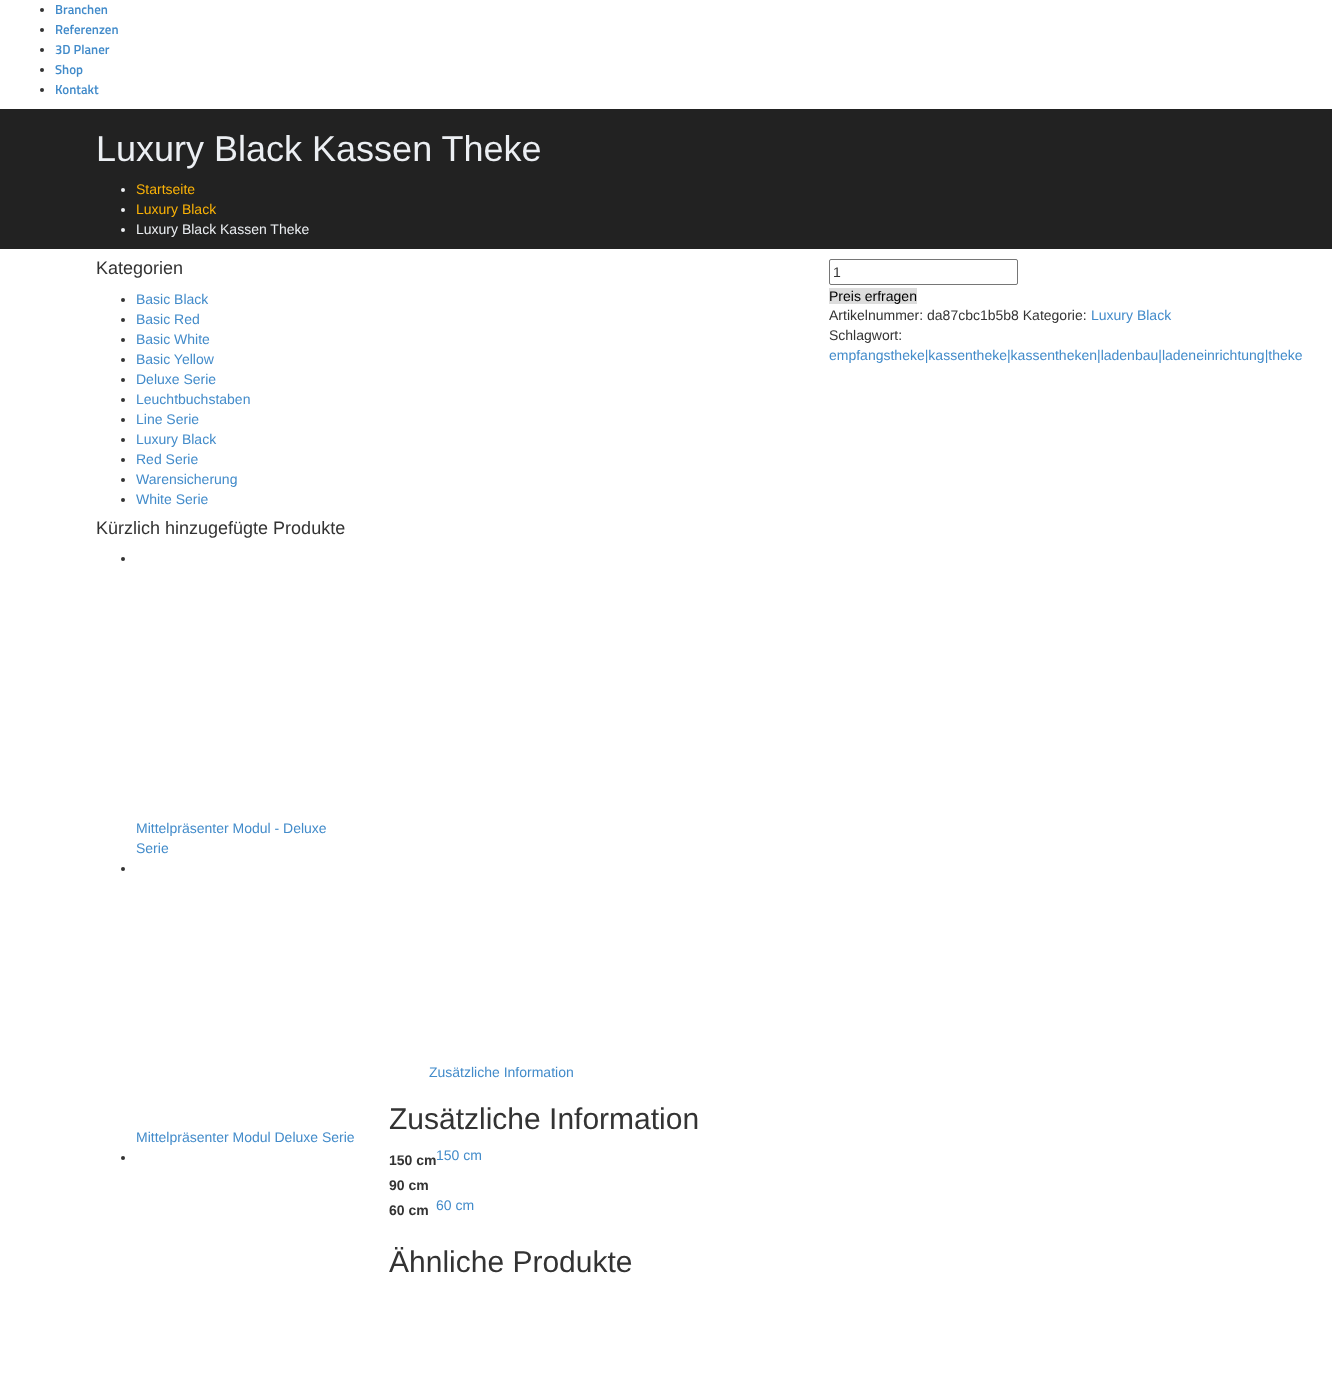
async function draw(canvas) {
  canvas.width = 1332;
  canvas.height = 1385;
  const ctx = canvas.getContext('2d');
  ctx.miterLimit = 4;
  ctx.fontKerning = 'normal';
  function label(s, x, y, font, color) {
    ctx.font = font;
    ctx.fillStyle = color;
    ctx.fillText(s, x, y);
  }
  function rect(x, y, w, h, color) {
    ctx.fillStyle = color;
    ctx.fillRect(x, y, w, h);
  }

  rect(0, 0, 1332, 1385, '#fff');
  ctx.fillStyle = '#333';
  ctx.beginPath();
  ctx.arc(42, 10, 2, 0, 2 * Math.PI);
  ctx.fill();
  label('Branchen', 55, 14, '600 13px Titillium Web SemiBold', '#428bca');
  ctx.fillStyle = '#333';
  ctx.beginPath();
  ctx.arc(42, 30, 2, 0, 2 * Math.PI);
  ctx.fill();
  label('Referenzen', 55, 34, '600 13px Titillium Web SemiBold', '#428bca');
  ctx.fillStyle = '#333';
  ctx.beginPath();
  ctx.arc(42, 50, 2, 0, 2 * Math.PI);
  ctx.fill();
  label('3D Planer', 55, 54, '600 13px Titillium Web SemiBold', '#428bca');
  ctx.fillStyle = '#333';
  ctx.beginPath();
  ctx.arc(42, 70, 2, 0, 2 * Math.PI);
  ctx.fill();
  label('Shop', 55, 74, '600 13px Titillium Web SemiBold', '#428bca');
  ctx.fillStyle = '#333';
  ctx.beginPath();
  ctx.arc(42, 90, 2, 0, 2 * Math.PI);
  ctx.fill();
  label('Kontakt', 55, 94, '600 13px Titillium Web SemiBold', '#428bca');
  rect(0, 109, 1332, 140, '#222');
  label('Luxury Black Kassen Theke', 96, 161, '36px Liberation Sans', '#eceff3');
  ctx.beginPath();
  ctx.arc(123, 190, 2, 0, 2 * Math.PI);
  ctx.fill();
  label('Startseite', 136, 194, '14px Liberation Sans', '#fab207');
  ctx.fillStyle = '#eceff3';
  ctx.beginPath();
  ctx.arc(123, 210, 2, 0, 2 * Math.PI);
  ctx.fill();
  label('Luxury Black', 136, 214, '14px Liberation Sans', '#fab207');
  ctx.fillStyle = '#eceff3';
  ctx.beginPath();
  ctx.arc(123, 230, 2, 0, 2 * Math.PI);
  ctx.fill();
  label('Luxury Black Kassen Theke', 136, 234, '14px Liberation Sans', '#eceff3');
  label('Kategorien', 96, 274, '18px Liberation Sans', '#333');
  ctx.beginPath();
  ctx.arc(123, 300, 2, 0, 2 * Math.PI);
  ctx.fill();
  label('Basic Black', 136, 304, '14px Liberation Sans', '#428bca');
  ctx.fillStyle = '#333';
  ctx.beginPath();
  ctx.arc(123, 320, 2, 0, 2 * Math.PI);
  ctx.fill();
  label('Basic Red', 136, 324, '14px Liberation Sans', '#428bca');
  ctx.fillStyle = '#333';
  ctx.beginPath();
  ctx.arc(123, 340, 2, 0, 2 * Math.PI);
  ctx.fill();
  label('Basic White', 136, 344, '14px Liberation Sans', '#428bca');
  ctx.fillStyle = '#333';
  ctx.beginPath();
  ctx.arc(123, 360, 2, 0, 2 * Math.PI);
  ctx.fill();
  label('Basic Yellow', 136, 364, '14px Liberation Sans', '#428bca');
  ctx.fillStyle = '#333';
  ctx.beginPath();
  ctx.arc(123, 380, 2, 0, 2 * Math.PI);
  ctx.fill();
  label('Deluxe Serie', 136, 384, '14px Liberation Sans', '#428bca');
  ctx.fillStyle = '#333';
  ctx.beginPath();
  ctx.arc(123, 400, 2, 0, 2 * Math.PI);
  ctx.fill();
  label('Leuchtbuchstaben', 136, 404, '14px Liberation Sans', '#428bca');
  ctx.fillStyle = '#333';
  ctx.beginPath();
  ctx.arc(123, 420, 2, 0, 2 * Math.PI);
  ctx.fill();
  label('Line Serie', 136, 424, '14px Liberation Sans', '#428bca');
  ctx.fillStyle = '#333';
  ctx.beginPath();
  ctx.arc(123, 440, 2, 0, 2 * Math.PI);
  ctx.fill();
  label('Luxury Black', 136, 444, '14px Liberation Sans', '#428bca');
  ctx.fillStyle = '#333';
  ctx.beginPath();
  ctx.arc(123, 460, 2, 0, 2 * Math.PI);
  ctx.fill();
  label('Red Serie', 136, 464, '14px Liberation Sans', '#428bca');
  ctx.fillStyle = '#333';
  ctx.beginPath();
  ctx.arc(123, 480, 2, 0, 2 * Math.PI);
  ctx.fill();
  label('Warensicherung', 136, 484, '14px Liberation Sans', '#428bca');
  ctx.fillStyle = '#333';
  ctx.beginPath();
  ctx.arc(123, 500, 2, 0, 2 * Math.PI);
  ctx.fill();
  label('White Serie', 136, 504, '14px Liberation Sans', '#428bca');
  label('Kürzlich hinzugefügte Produkte', 96, 534, '18px Liberation Sans', '#333');
  ctx.beginPath();
  ctx.arc(123, 559, 2, 0, 2 * Math.PI);
  ctx.fill();
  label('Mittelpräsenter Modul - Deluxe', 136, 833, '14px Liberation Sans', '#428bca');
  label('Serie', 136, 853, '14px Liberation Sans', '#428bca');
  ctx.fillStyle = '#333';
  ctx.beginPath();
  ctx.arc(123, 869, 2, 0, 2 * Math.PI);
  ctx.fill();
  label('Mittelpräsenter Modul Deluxe Serie', 136, 1142, '14px Liberation Sans', '#428bca');
  ctx.fillStyle = '#333';
  ctx.beginPath();
  ctx.arc(123, 1158, 2, 0, 2 * Math.PI);
  ctx.fill();
  ctx.beginPath();
  ctx.roundRect(829.5, 259.5, 188, 25, 1.5);
  ctx.strokeStyle = '#767676';
  ctx.stroke();
  label('1', 833, 277, '14px Liberation Sans', '#333');
  rect(829, 288, 88, 16, '#ddd');
  label('Preis erfragen', 829, 301, '14px Liberation Sans', '#000');
  label('Artikelnummer: da87cbc1b5b8 Kategorie:', 829, 320, '14px Liberation Sans', '#333');
  label('Luxury Black', 1091, 320, '14px Liberation Sans', '#428bca');
  label('Schlagwort:', 829, 340, '14px Liberation Sans', '#333');
  label('empfangstheke|kassentheke|kassentheken|ladenbau|ladeneinrichtung|theke', 829, 360, '14px Liberation Sans', '#428bca');
  label('Zusätzliche Information', 429, 1077, '14px Liberation Sans', '#428bca');
  label('Zusätzliche Information', 389, 1129, '30px Liberation Sans', '#333');
  label('150 cm', 389, 1165, 'bold 14px Liberation Sans', '#333');
  label('150 cm', 436, 1160, '14px Liberation Sans', '#428bca');
  label('90 cm', 389, 1190, 'bold 14px Liberation Sans', '#333');
  label('60 cm', 389, 1215, 'bold 14px Liberation Sans', '#333');
  label('60 cm', 436, 1210, '14px Liberation Sans', '#428bca');
  label('Ähnliche Produkte', 389, 1272, '30px Liberation Sans', '#333');
}

draw(document.querySelector('canvas'));
